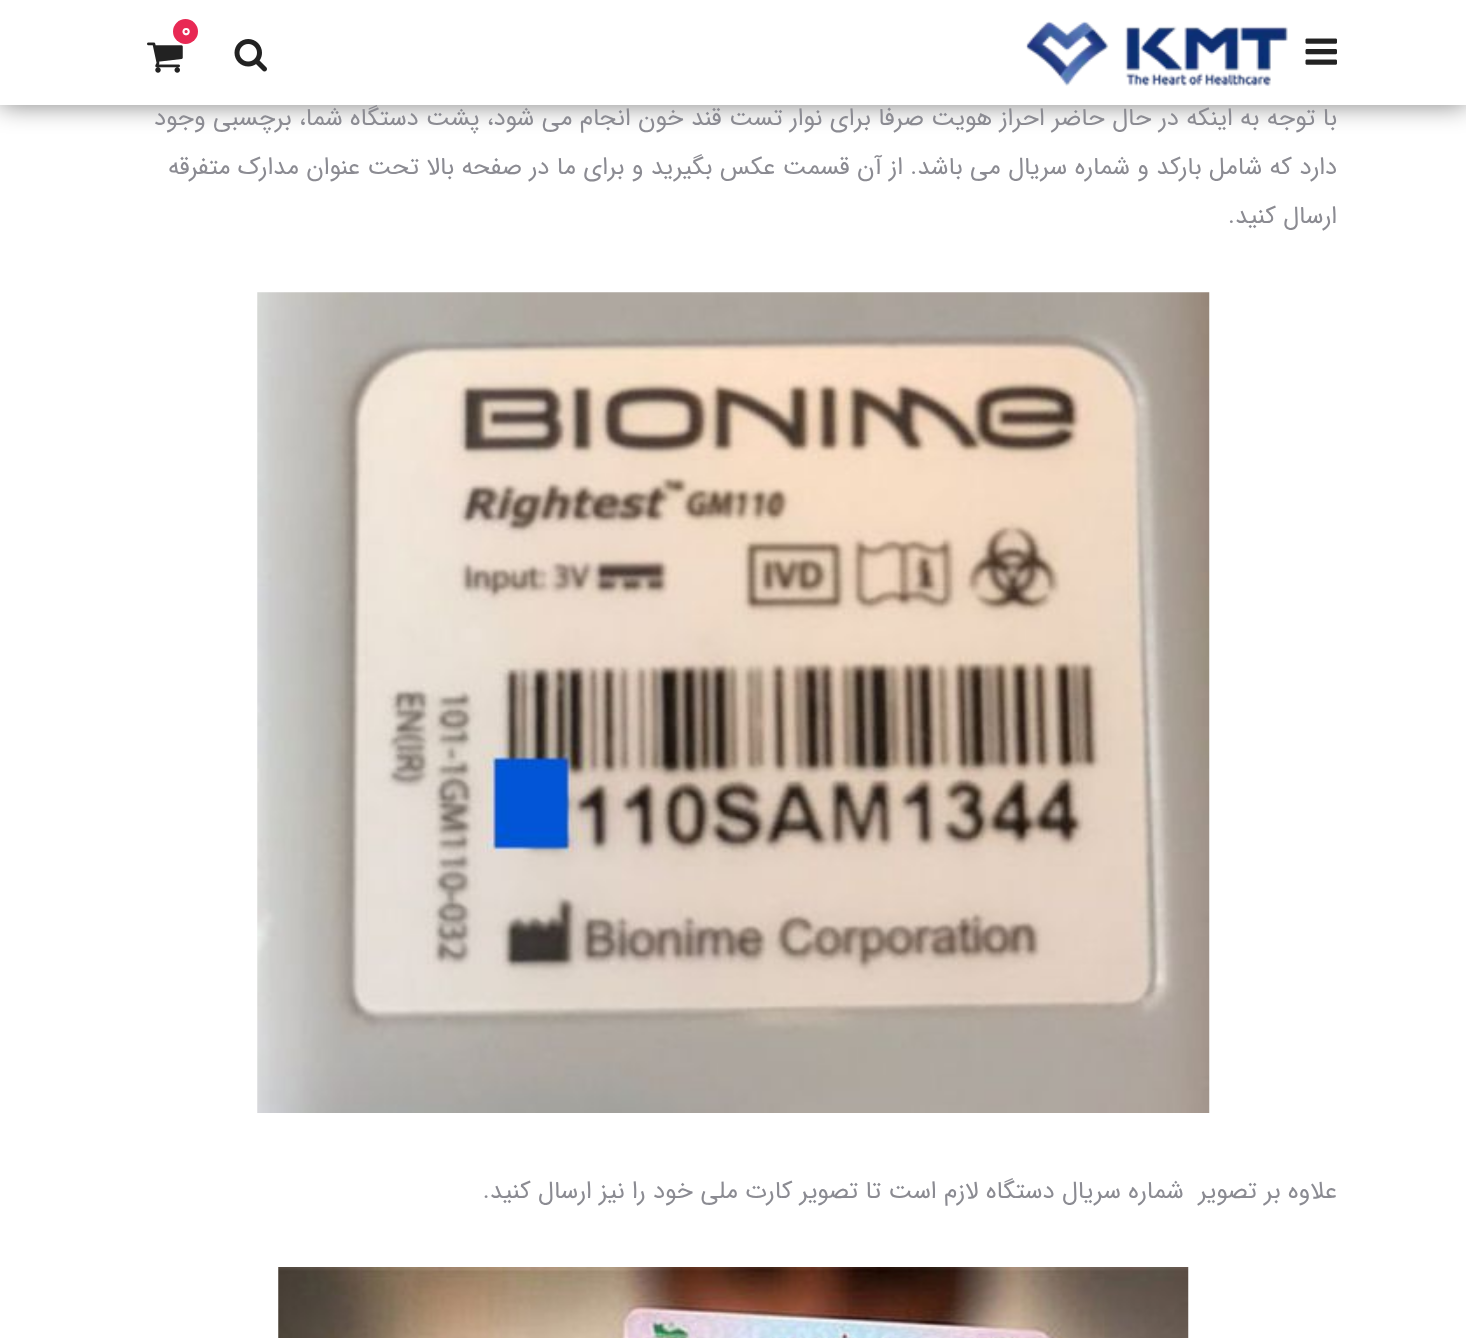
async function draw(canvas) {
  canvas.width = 1466;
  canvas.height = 1338;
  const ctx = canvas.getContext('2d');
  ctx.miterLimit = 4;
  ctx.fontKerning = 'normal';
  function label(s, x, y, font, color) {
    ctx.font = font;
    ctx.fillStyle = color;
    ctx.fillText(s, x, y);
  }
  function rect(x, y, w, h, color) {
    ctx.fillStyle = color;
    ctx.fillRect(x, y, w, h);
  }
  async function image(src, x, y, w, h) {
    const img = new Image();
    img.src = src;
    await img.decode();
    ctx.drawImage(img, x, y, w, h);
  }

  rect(0, 0, 1466, 1338, '#fff');
  ctx.fillStyle = '#00000080';
  ctx.filter = 'blur(13px)';
  ctx.beginPath();
  ctx.rect(0, 0, 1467, 105);
  ctx.fill();
  ctx.filter = 'none';
  rect(0, 0, 1466, 105, '#fff');
  await image('assets/img1.png', 1305, 38, 32, 27);
  await image('assets/img2.png', 1025, 21, 263, 65);
  await image('assets/img3.png', 147, 42, 36, 31);
  ctx.fillStyle = '#e82954';
  ctx.beginPath();
  ctx.arc(185.5, 31.5, 12.5, 0, 2 * Math.PI);
  ctx.fill();
  label('0', 181, 37, '500 23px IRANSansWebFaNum', '#fff');
  await image('assets/img4.png', 234, 39, 33, 33);
  ctx.direction = 'rtl';
  label('با توجه به اینکه در حال حاضر احراز هویت صرفا برای نوار تست قند خون انجام می شود، پشت دستگاه شما، برچسبی وجود', 1337, 125, '24.5px IRANSansWebFaNum', '#8b8b92');
  label('دارد که شامل بارکد و شماره سریال می باشد. از آن قسمت عکس بگیرید و برای ما در صفحه بالا تحت عنوان مدارک متفرقه', 1337, 174, '24.5px IRANSansWebFaNum', '#8b8b92');
  label('ارسال کنید.', 1337, 223, '24.5px IRANSansWebFaNum', '#8b8b92');
  await image('assets/img5.png', 257, 292, 953, 821);
  label('علاوه بر تصویر  شماره سریال دستگاه لازم است تا تصویر کارت ملی خود را نیز ارسال کنید.', 1337, 1198, '24.5px IRANSansWebFaNum', '#8b8b92');
  await image('assets/img6.png', 278, 1267, 911, 71);
}

draw(document.querySelector('canvas'));
